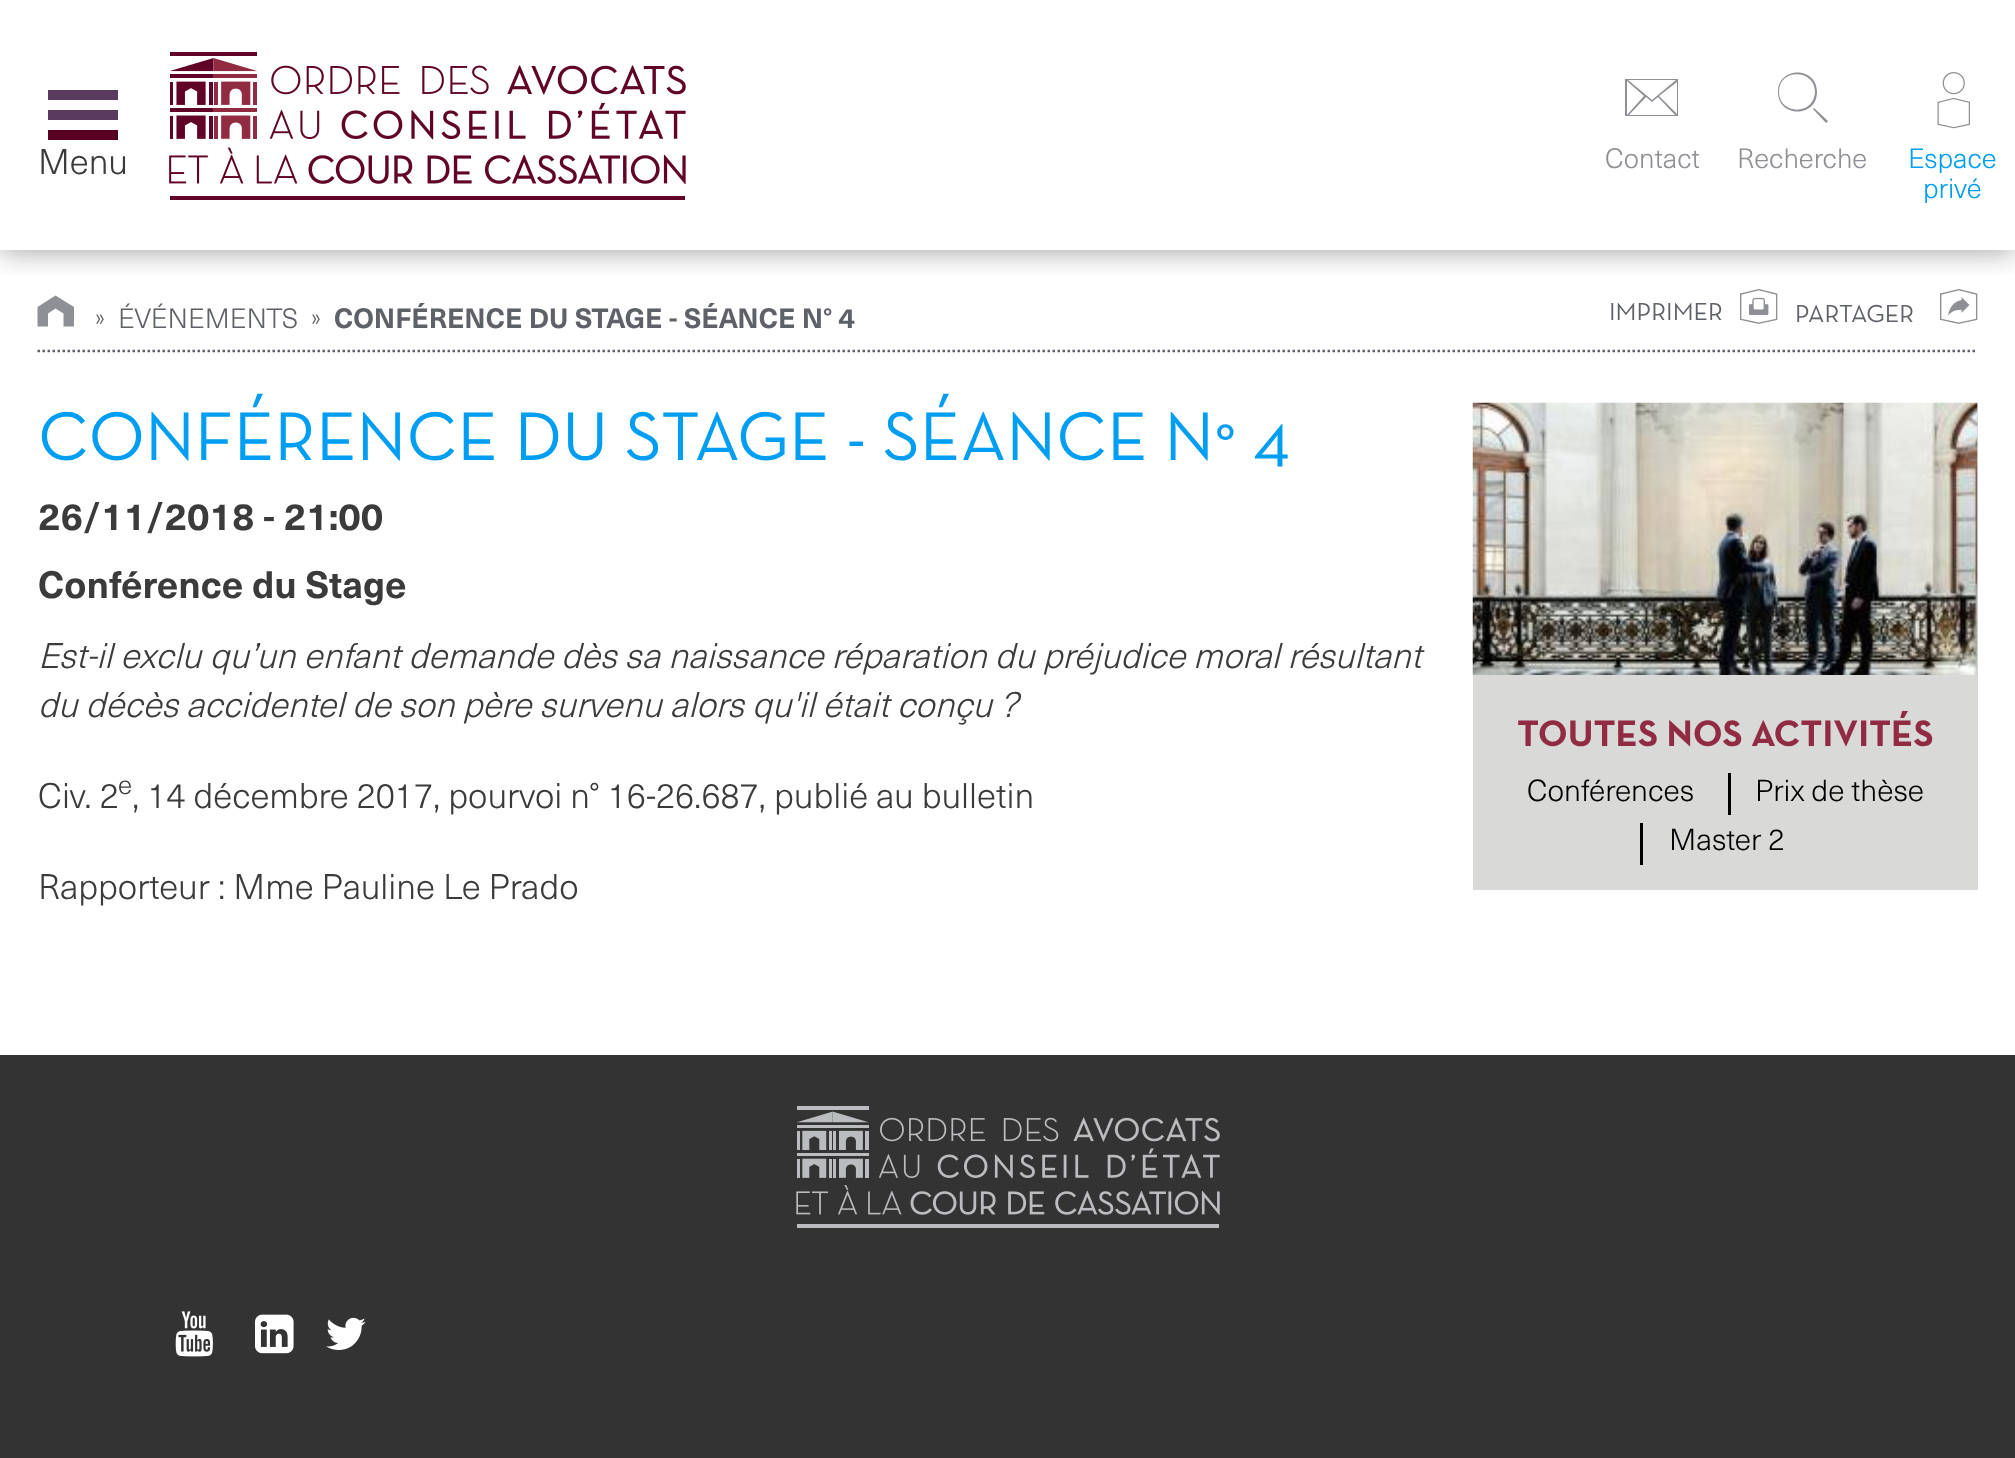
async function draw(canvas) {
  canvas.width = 2015;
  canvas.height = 1458;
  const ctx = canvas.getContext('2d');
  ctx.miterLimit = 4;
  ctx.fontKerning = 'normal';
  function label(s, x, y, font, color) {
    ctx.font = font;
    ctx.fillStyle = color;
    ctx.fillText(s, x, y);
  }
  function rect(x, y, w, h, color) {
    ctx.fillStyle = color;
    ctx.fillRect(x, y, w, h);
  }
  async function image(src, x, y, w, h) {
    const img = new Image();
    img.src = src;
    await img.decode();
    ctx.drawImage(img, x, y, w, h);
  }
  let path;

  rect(0, 0, 2015, 1458, '#333');
  rect(0, 0, 2015, 1055, '#fff');
  ctx.fillStyle = '#8f9095';
  path = new Path2D('M37.5 326.5V307L55.5 295.5L74 307V326.5H63.5V313.5L55.5 308.5L48 313.5V326.5Z');
  ctx.fill(path);
  await image('assets/img3.png', 1740, 289, 38, 35);
  await image('assets/img4.png', 1940, 289, 38, 35);
  ctx.save();
  ctx.beginPath();
  ctx.rect(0, 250, 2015, 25);
  ctx.clip();
  ctx.fillStyle = '#00000066';
  ctx.filter = 'blur(15px)';
  ctx.beginPath();
  ctx.rect(0, 0, 2015, 250);
  ctx.fill();
  ctx.filter = 'none';
  ctx.restore();
  rect(48, 130, 70, 10, '#580021');
  rect(48, 90, 70, 10, '#5a3b5d');
  rect(48, 110, 70, 10, '#5a3b5d');
  label('Menu', 38, 174, '300 35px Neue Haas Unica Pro', '#3b3b3b');
  await image('assets/img1.png', 169, 52, 517, 148);
  ctx.fillStyle = '#8f9095';
  path = new Path2D('M1625 116V79H1678V116ZM1627 115L1644 96L1627 81ZM1628 80L1652 100L1676 80ZM1629 115H1675L1658 97L1652 102L1646 97ZM1659 96L1677 114V82Z');
  ctx.fill(path);
  label('Contact', 1605, 168, '300 27.5px Neue Haas Unica Pro', '#8f9095');
  path = new Path2D('M1778 92C1778 66 1817 66 1817 92C1817 118 1778 118 1778 92ZM1779 92C1779 115 1814 116 1815 92C1815 69 1779 68 1779 92ZM1813 109L1814 108L1828 121L1826 123Z');
  ctx.fill(path);
  label('Recherche', 1737, 168, '300 27.5px Neue Haas Unica Pro', '#8f9095');
  await image('assets/img2.png', 1937, 72, 33, 57);
  label('Espace', 1908, 168, '300 27.5px Neue Haas Unica Pro', '#009ef2');
  label('privé', 1923, 198, '300 27.5px Neue Haas Unica Pro', '#009ef2');
  path = new Path2D('M37.5 351H1977.5');
  ctx.strokeStyle = '#5f6168';
  ctx.lineWidth = 2.5;
  ctx.setLineDash([2.5, 2.5]);
  ctx.stroke(path);
  label('»', 95, 325, '300 23px Neue Haas Unica Pro', '#5f6168');
  label('ÉVÉNEMENTS', 118, 328, '300 27.5px Neue Haas Unica Pro', '#5f6168');
  label('»', 311, 325, '300 23px Neue Haas Unica Pro', '#5f6168');
  label('CONFÉRENCE DU STAGE - SÉANCE N° 4', 334, 328, 'bold 27.5px Neue Haas Unica Pro', '#5f6168');
  label('IMPRIMER', 1609, 320, '25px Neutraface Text', '#5f6168');
  label('PARTAGER', 1795, 322, '25px Neutraface Text', '#5f6168');
  label('CONFÉRENCE DU STAGE - SÉANCE N° 4', 38, 460, '70px Neutraface Text', '#009ef2');
  label('26/11/2018 - 21:00', 38, 530, 'bold 37.5px Neue Haas Unica Pro', '#3b3b3b');
  label('Conférence du Stage', 38, 598, 'bold 37.5px Neue Haas Unica Pro', '#3b3b3b');
  label('Est-il exclu qu’un enfant demande dès sa naissance réparation du préjudice moral résultant', 38, 668, 'italic 300 35px Neue Haas Unica Pro', '#3b3b3b');
  label('du décès accidentel de son père survenu alors qu\'il était conçu ?', 38, 717, 'italic 300 35px Neue Haas Unica Pro', '#3b3b3b');
  label('Civ. 2', 38, 808, '300 35px Neue Haas Unica Pro', '#3b3b3b');
  label('e', 118, 794, '300 26px Neue Haas Unica Pro', '#3b3b3b');
  label(', 14 décembre 2017, pourvoi n° 16-26.687, publié au bulletin', 132, 808, '300 35px Neue Haas Unica Pro', '#3b3b3b');
  label('Rapporteur : Mme Pauline Le Prado', 38, 899, '300 35px Neue Haas Unica Pro', '#3b3b3b');
  rect(1473, 403, 505, 487, '#d9d9d8');
  await image('assets/img5.png', 1472, 402, 506, 273);
  label('TOUTES NOS ACTIVITÉS', 1517, 746, 'bold 37.5px Neutraface Text', '#912b43');
  label('Conférences', 1527, 801, '300 30px Neue Haas Unica Pro', '#000');
  rect(1728, 773, 3, 42, '#000');
  label('Prix de thèse', 1755, 801, '300 30px Neue Haas Unica Pro', '#000');
  rect(1640, 823, 3, 42, '#000');
  label('Master 2', 1669, 850, '300 30px Neue Haas Unica Pro', '#000');
  await image('assets/img6.png', 796, 1106, 424, 122);
  await image('assets/img7.png', 175, 1311, 38, 46);
  await image('assets/img8.png', 255, 1314, 39, 40);
  await image('assets/img9.png', 326, 1317, 40, 33);
}

draw(document.querySelector('canvas'));
